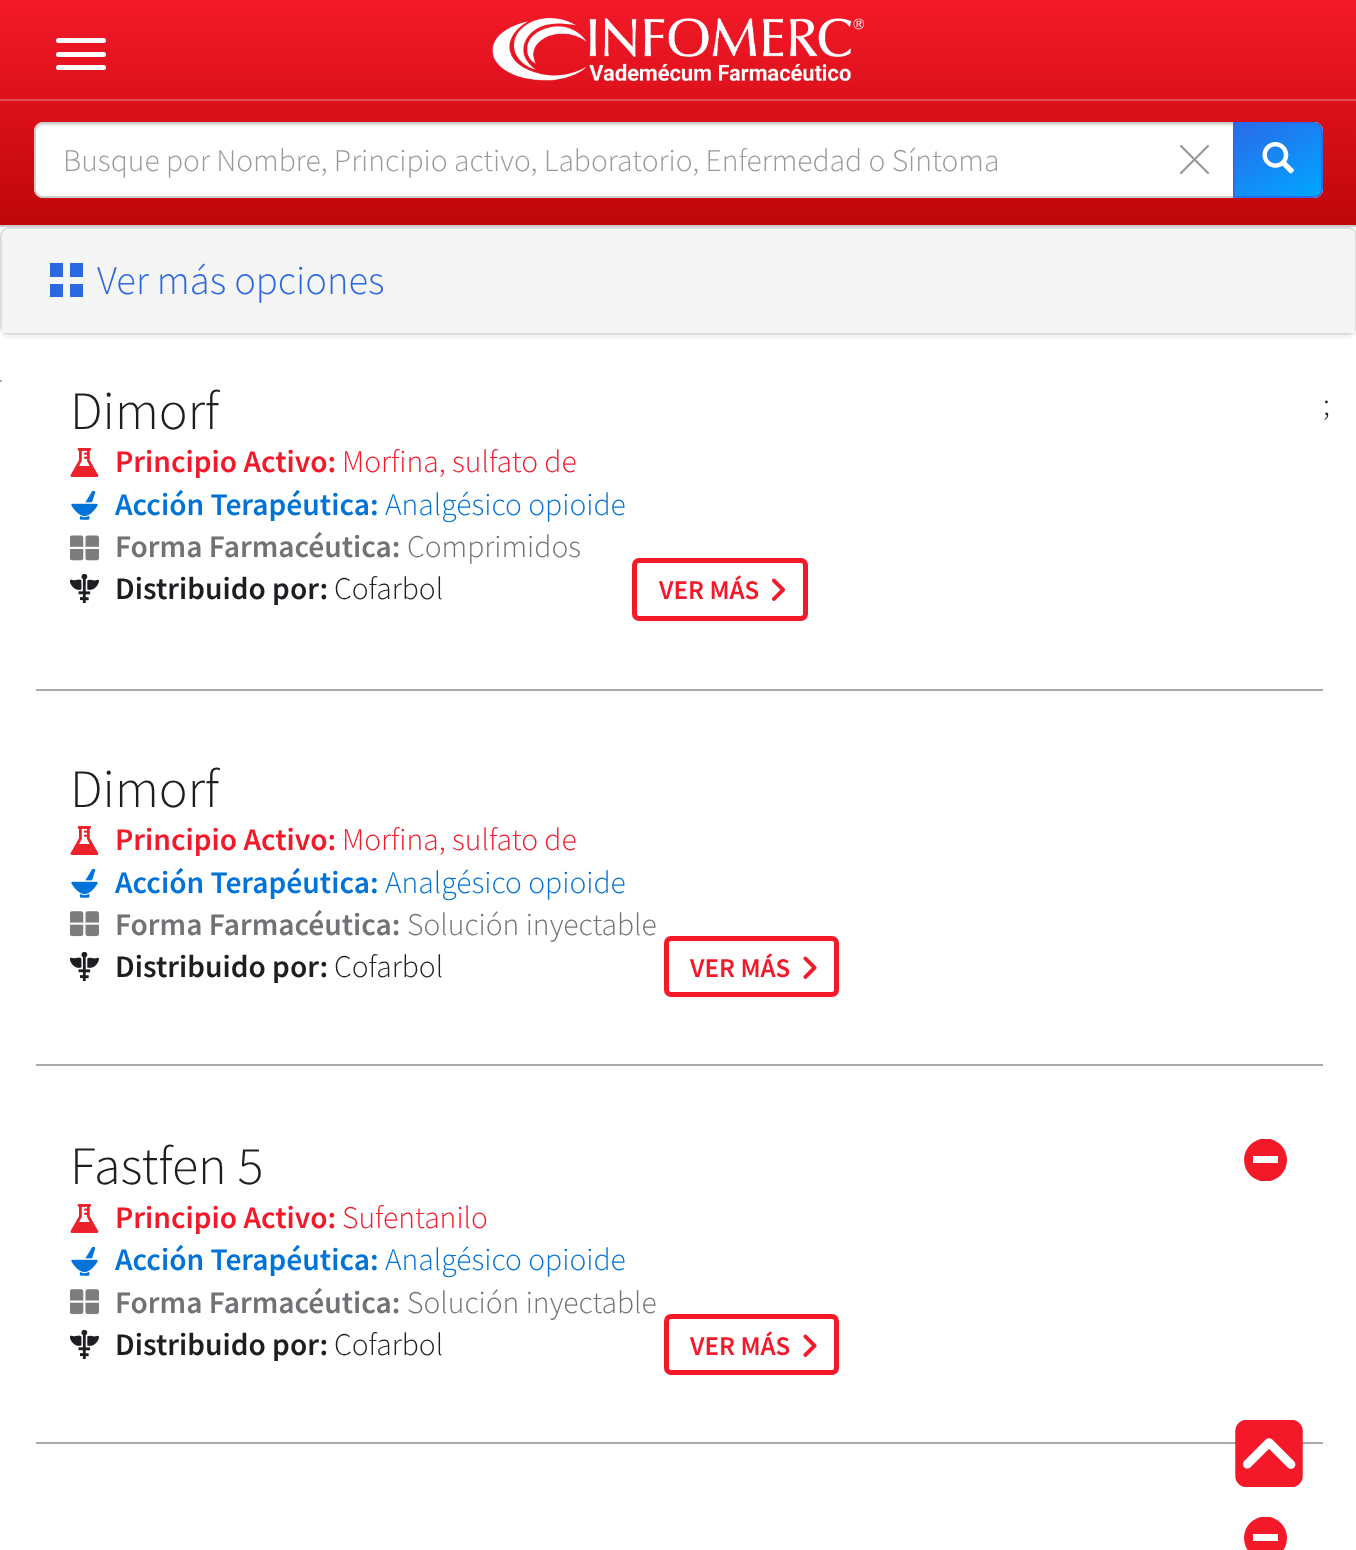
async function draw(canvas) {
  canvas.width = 1356;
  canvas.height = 1550;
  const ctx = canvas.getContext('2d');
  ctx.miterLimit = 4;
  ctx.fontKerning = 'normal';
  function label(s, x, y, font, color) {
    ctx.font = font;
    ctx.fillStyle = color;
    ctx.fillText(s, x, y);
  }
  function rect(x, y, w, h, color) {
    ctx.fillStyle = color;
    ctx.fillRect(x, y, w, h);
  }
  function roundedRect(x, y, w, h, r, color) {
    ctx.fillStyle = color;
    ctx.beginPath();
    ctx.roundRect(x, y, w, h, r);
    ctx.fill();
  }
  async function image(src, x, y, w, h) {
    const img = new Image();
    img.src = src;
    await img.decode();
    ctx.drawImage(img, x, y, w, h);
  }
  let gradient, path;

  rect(0, 0, 1356, 1550, '#fff');
  gradient = ctx.createLinearGradient(678, 0, 678, 225);
  gradient.addColorStop(0.01, '#f31928');
  gradient.addColorStop(1, '#bf070a');
  ctx.fillStyle = gradient;
  ctx.fillRect(0, 0, 1356, 225);
  roundedRect(56, 38, 50, 5, 2.5, '#fff');
  roundedRect(56, 52, 50, 5, 2.5, '#fff');
  roundedRect(56, 65, 50, 5, 2.5, '#fff');
  await image('assets/img1.png', 492, 18, 372, 63);
  rect(0, 99, 1356, 2, '#e54d54');
  roundedRect(34, 122, 1289, 76, 9, '#fff');
  ctx.fillStyle = '#ececec';
  path = new Path2D('M43 126H1314C1318 126 1321 129 1321 133V131C1321 127 1318 124 1314 124H43C39 124 36 127 36 131V133C36 129 39 126 43 126Z');
  ctx.fill(path);
  ctx.beginPath();
  ctx.roundRect(35, 123, 1287, 74, 8);
  ctx.strokeStyle = '#ccc';
  ctx.lineWidth = 2;
  ctx.stroke();
  label('Busque por Nombre, Principio activo, Laboratorio, Enfermedad o Síntoma', 63, 171, '300 31.5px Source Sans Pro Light', '#999');
  path = new Path2D('M1208 146L1181 173M1181 146L1208 173');
  ctx.strokeStyle = '#999';
  ctx.lineWidth = 2.2;
  ctx.lineCap = 'round';
  ctx.lineJoin = 'round';
  ctx.stroke(path);
  ctx.save();
  ctx.beginPath();
  ctx.roundRect(1233, 122, 90, 76, [0, 9, 9, 0]);
  ctx.clip();
  gradient = ctx.createLinearGradient(1252, 114, 1304, 205);
  gradient.addColorStop(0, '#2a6bea');
  gradient.addColorStop(1, '#00a6ff');
  ctx.fillStyle = gradient;
  ctx.fillRect(1235, 124, 86, 72);
  ctx.restore();
  ctx.beginPath();
  ctx.roundRect(1234, 123, 88, 74, [0, 8, 8, 0]);
  ctx.strokeStyle = '#2a6bea';
  ctx.lineWidth = 2;
  ctx.lineJoin = 'miter';
  ctx.stroke();
  await image('assets/img2.png', 1262, 142, 32, 32);
  ctx.fillStyle = '#0000000d';
  ctx.filter = 'blur(1px)';
  ctx.beginPath();
  ctx.roundRect(0, 230, 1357, 108, 9);
  ctx.fill();
  ctx.filter = 'none';
  rect(0, 225, 1356, 2, '#ccc');
  ctx.fillStyle = '#fff';
  ctx.beginPath();
  ctx.roundRect(1, 228, 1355, 106, 8);
  ctx.fill();
  ctx.strokeStyle = '#ddd';
  ctx.stroke();
  ctx.fillStyle = '#f5f5f5';
  ctx.beginPath();
  ctx.roundRect(2, 230, 1353, 103, [7, 7, 0, 0]);
  ctx.fill();
  rect(50, 263, 13, 14, '#2b68e1');
  rect(70, 263, 13, 14, '#2b68e1');
  rect(50, 284, 13, 13, '#2b68e1');
  rect(70, 284, 13, 13, '#2b68e1');
  label('Ver más opciones', 97, 294, '300 40.5px Source Sans Pro Light', '#2b68e1');
  rect(0, 380, 2, 2, '#aaa');
  rect(36, 689, 1287, 2, '#aaa');
  label('Dimorf', 70, 429, '300 54px Source Sans Pro Light', '#1c1e21');
  await image('assets/img3.png', 70, 448, 29, 29);
  label('Principio Activo:', 115, 472, '600 31.5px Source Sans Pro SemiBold', '#f31928');
  label('Morfina, sulfato de', 342, 472, '300 31.5px Source Sans Pro Light', '#f31928');
  await image('assets/img4.png', 71, 491, 27, 29);
  label('Acción Terapéutica:', 115, 515, '600 31.5px Source Sans Pro SemiBold', '#0073d8');
  label('Analgésico opioide', 385, 515, '300 31.5px Source Sans Pro Light', '#0073d8');
  await image('assets/img5.png', 70, 535, 29, 26);
  label('Forma Farmacéutica:', 115, 557, '600 31.5px Source Sans Pro SemiBold', '#707275');
  label('Comprimidos', 407, 557, '300 31.5px Source Sans Pro Light', '#707275');
  await image('assets/img6.png', 70, 574, 29, 29);
  label('Distribuido por:', 115, 599, '600 31.5px Source Sans Pro SemiBold', '#1c1e21');
  label('Cofarbol', 334, 599, '300 31.5px Source Sans Pro Light', '#1c1e21');
  await image('assets/img7.png', 772, 578, 13, 23);
  ctx.beginPath();
  ctx.roundRect(634.5, 560.5, 171, 58, 4.5);
  ctx.strokeStyle = '#f31928';
  ctx.lineWidth = 5;
  ctx.stroke();
  label('VER MÁS', 659, 599, '600 27px Source Sans Pro SemiBold', '#f31928');
  rect(36, 1064, 1287, 2, '#aaa');
  label('Dimorf', 70, 807, '300 54px Source Sans Pro Light', '#1c1e21');
  await image('assets/img3.png', 70, 826, 29, 29);
  label('Principio Activo:', 115, 850, '600 31.5px Source Sans Pro SemiBold', '#f31928');
  label('Morfina, sulfato de', 342, 850, '300 31.5px Source Sans Pro Light', '#f31928');
  await image('assets/img4.png', 71, 869, 27, 29);
  label('Acción Terapéutica:', 115, 893, '600 31.5px Source Sans Pro SemiBold', '#0073d8');
  label('Analgésico opioide', 385, 893, '300 31.5px Source Sans Pro Light', '#0073d8');
  await image('assets/img8.png', 70, 911, 29, 26);
  label('Forma Farmacéutica:', 115, 935, '600 31.5px Source Sans Pro SemiBold', '#707275');
  label('Solución inyectable', 407, 935, '300 31.5px Source Sans Pro Light', '#707275');
  await image('assets/img6.png', 70, 952, 29, 29);
  label('Distribuido por:', 115, 977, '600 31.5px Source Sans Pro SemiBold', '#1c1e21');
  label('Cofarbol', 334, 977, '300 31.5px Source Sans Pro Light', '#1c1e21');
  await image('assets/img9.png', 803, 956, 14, 23);
  ctx.beginPath();
  ctx.roundRect(666.5, 938.5, 170, 56, 4.5);
  ctx.stroke();
  label('VER MÁS', 690, 977, '600 27px Source Sans Pro SemiBold', '#f31928');
  rect(36, 1442, 1287, 2, '#aaa');
  label('Fastfen 5', 70, 1184, '300 54px Source Sans Pro Light', '#1c1e21');
  await image('assets/img3.png', 70, 1204, 29, 29);
  label('Principio Activo:', 115, 1228, '600 31.5px Source Sans Pro SemiBold', '#f31928');
  label('Sufentanilo', 342, 1228, '300 31.5px Source Sans Pro Light', '#f31928');
  await image('assets/img4.png', 71, 1247, 27, 29);
  label('Acción Terapéutica:', 115, 1270, '600 31.5px Source Sans Pro SemiBold', '#0073d8');
  label('Analgésico opioide', 385, 1270, '300 31.5px Source Sans Pro Light', '#0073d8');
  await image('assets/img8.png', 70, 1289, 29, 26);
  label('Forma Farmacéutica:', 115, 1313, '600 31.5px Source Sans Pro SemiBold', '#707275');
  label('Solución inyectable', 407, 1313, '300 31.5px Source Sans Pro Light', '#707275');
  await image('assets/img6.png', 70, 1330, 29, 29);
  label('Distribuido por:', 115, 1355, '600 31.5px Source Sans Pro SemiBold', '#1c1e21');
  label('Cofarbol', 334, 1355, '300 31.5px Source Sans Pro Light', '#1c1e21');
  await image('assets/img9.png', 803, 1334, 14, 23);
  ctx.beginPath();
  ctx.roundRect(666.5, 1316.5, 170, 56, 4.5);
  ctx.stroke();
  label('VER MÁS', 690, 1355, '600 27px Source Sans Pro SemiBold', '#f31928');
  ctx.save();
  ctx.beginPath();
  ctx.rect(1244, 1139, 43, 42);
  ctx.clip();
  ctx.beginPath();
  ctx.arc(1265.5, 1160, 21.5, 0, 2 * Math.PI);
  ctx.fill();
  ctx.restore();
  rect(1253, 1156, 25, 7, '#fff');
  ctx.save();
  ctx.beginPath();
  ctx.rect(1244, 1517, 43, 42);
  ctx.clip();
  ctx.fillStyle = '#f31928';
  ctx.beginPath();
  ctx.arc(1265.5, 1538, 21.5, 0, 2 * Math.PI);
  ctx.fill();
  ctx.restore();
  rect(1253, 1534, 25, 7, '#fff');
  label(';', 1323, 415, '300 31.5px Source Sans Pro Light', '#1c1e21');
  await image('assets/img10.png', 1235, 1420, 68, 67);
}

draw(document.querySelector('canvas'));
